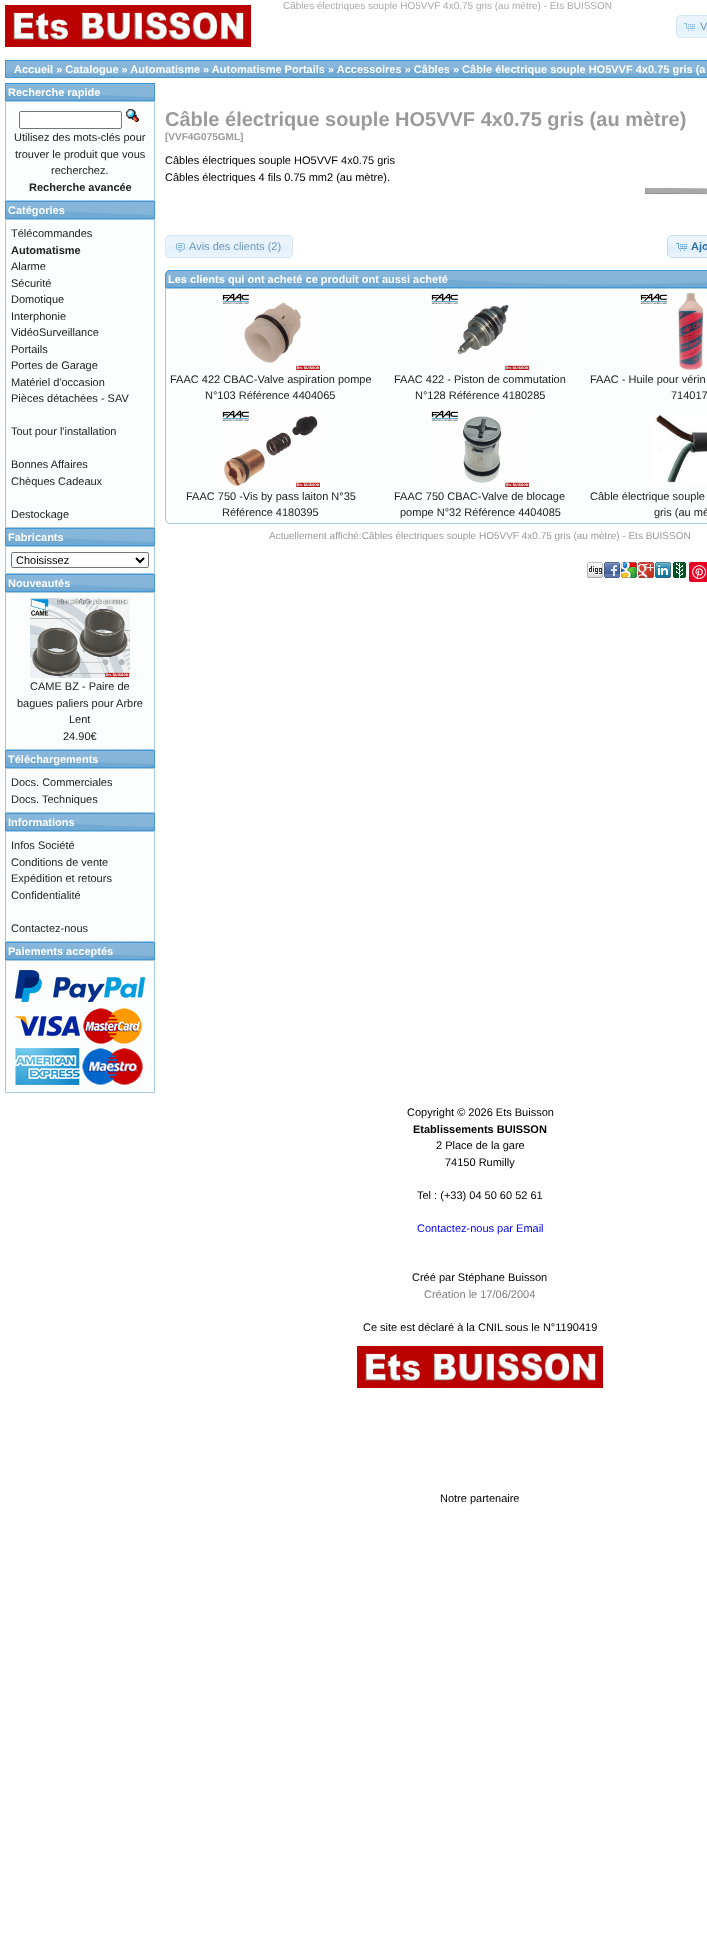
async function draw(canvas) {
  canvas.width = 707;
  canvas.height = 1959;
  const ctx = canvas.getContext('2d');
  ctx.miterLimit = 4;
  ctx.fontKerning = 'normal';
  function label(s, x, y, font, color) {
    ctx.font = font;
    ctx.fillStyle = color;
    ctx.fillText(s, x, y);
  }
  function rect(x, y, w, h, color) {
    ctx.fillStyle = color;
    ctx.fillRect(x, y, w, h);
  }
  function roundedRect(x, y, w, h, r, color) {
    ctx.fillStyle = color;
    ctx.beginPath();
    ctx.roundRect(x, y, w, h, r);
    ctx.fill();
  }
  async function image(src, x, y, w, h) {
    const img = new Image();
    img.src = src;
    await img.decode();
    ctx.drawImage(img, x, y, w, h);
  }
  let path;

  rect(0, 0, 707, 1959, '#fff');
  await image('assets/img1.png', 5, 5, 246, 42);
  label('Câbles électriques souple HO5VVF 4x0.75 gris (au mètre) - Ets BUISSON', 283, 9, '10px Liberation Sans', '#aaa');
  ctx.fillStyle = '#e9f4fd';
  path = new Path2D('M681 15H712V38H681C678 38 676 36 676 33V20C676 17 678 15 681 15Z');
  ctx.fill(path);
  rect(676, 26, 31, 6, '#e3f1fc');
  path = new Path2D('M681 15.5H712.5V37.5H681C678.5 37.5 676.5 35.5 676.5 33V20C676.5 17.5 678.5 15.5 681 15.5Z');
  ctx.strokeStyle = '#d6e6f2';
  ctx.stroke(path);
  await image('assets/img2.png', 684, 23, 11, 8);
  label('V', 700, 30, '11px Liberation Sans', '#6d9abb');
  await image('assets/img3.png', 6, 61, 701, 16);
  ctx.strokeStyle = '#4297d7';
  ctx.strokeRect(5.5, 60.5, 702, 17);
  label('Accueil » Catalogue » Automatisme » Automatisme Portails » Accessoires » Câbles » Câble électrique souple HO5VVF 4x0.75 gris (a', 14, 73, 'bold 11px Liberation Sans', '#fff');
  await image('assets/img4.png', 6, 84, 148, 16);
  ctx.strokeRect(5.5, 83.5, 149, 17);
  label('Recherche rapide', 8, 96, 'bold 11px Liberation Sans', '#fff');
  ctx.fillStyle = '#fcfdfd';
  ctx.beginPath();
  ctx.rect(5.5, 101.5, 149, 99);
  ctx.fill();
  ctx.strokeStyle = '#a6c9e2';
  ctx.stroke();
  ctx.fillStyle = '#fff';
  ctx.beginPath();
  ctx.roundRect(19.5, 111.5, 102, 17, 1.5);
  ctx.fill();
  ctx.strokeStyle = '#767676';
  ctx.stroke();
  await image('assets/img5.png', 126, 109, 13, 13);
  label('Utilisez des mots-clés pour', 14, 141, '11px Liberation Sans', '#222');
  label('trouver le produit que vous', 15, 158, '11px Liberation Sans', '#222');
  label('recherchez.', 51, 174, '11px Liberation Sans', '#222');
  label('Recherche avancée', 29, 191, 'bold 11px Liberation Sans', '#222');
  await image('assets/img4.png', 6, 202, 148, 16);
  ctx.strokeStyle = '#4297d7';
  ctx.strokeRect(5.5, 201.5, 149, 17);
  label('Catégories', 8, 214, 'bold 11px Liberation Sans', '#fff');
  ctx.fillStyle = '#fcfdfd';
  ctx.beginPath();
  ctx.rect(5.5, 219.5, 149, 308);
  ctx.fill();
  ctx.strokeStyle = '#a6c9e2';
  ctx.stroke();
  label('Télécommandes', 11, 237, '11px Liberation Sans', '#222');
  label('Automatisme', 11, 254, 'bold 11px Liberation Sans', '#222');
  label('Alarme', 11, 270, '11px Liberation Sans', '#222');
  label('Sécurité', 11, 287, '11px Liberation Sans', '#222');
  label('Domotique', 11, 303, '11px Liberation Sans', '#222');
  label('Interphonie', 11, 320, '11px Liberation Sans', '#222');
  label('VidéoSurveillance', 11, 336, '11px Liberation Sans', '#222');
  label('Portails', 11, 353, '11px Liberation Sans', '#222');
  label('Portes de Garage', 11, 369, '11px Liberation Sans', '#222');
  label('Matériel d\'occasion', 11, 386, '11px Liberation Sans', '#222');
  label('Pièces détachées - SAV', 11, 402, '11px Liberation Sans', '#222');
  label('Tout pour l\'installation', 11, 435, '11px Liberation Sans', '#222');
  label('Bonnes Affaires', 11, 468, '11px Liberation Sans', '#222');
  label('Chèques Cadeaux', 11, 485, '11px Liberation Sans', '#222');
  label('Destockage', 11, 518, '11px Liberation Sans', '#222');
  await image('assets/img4.png', 6, 529, 148, 16);
  ctx.strokeStyle = '#4297d7';
  ctx.strokeRect(5.5, 528.5, 149, 17);
  label('Fabricants', 8, 541, 'bold 11px Liberation Sans', '#fff');
  ctx.fillStyle = '#fcfdfd';
  ctx.beginPath();
  ctx.rect(5.5, 546.5, 149, 27);
  ctx.fill();
  ctx.strokeStyle = '#a6c9e2';
  ctx.stroke();
  ctx.fillStyle = '#fff';
  ctx.beginPath();
  ctx.roundRect(11.5, 552.5, 137, 15, 1.5);
  ctx.fill();
  ctx.strokeStyle = '#767676';
  ctx.stroke();
  path = new Path2D('M136 558L140 562L144 558');
  ctx.strokeStyle = '#000';
  ctx.lineWidth = 2;
  ctx.stroke(path);
  label('Choisissez', 16, 564, '11px Liberation Sans', '#000');
  await image('assets/img4.png', 6, 575, 148, 16);
  ctx.strokeStyle = '#4297d7';
  ctx.lineWidth = 1;
  ctx.strokeRect(5.5, 574.5, 149, 17);
  label('Nouveautés', 8, 587, 'bold 11px Liberation Sans', '#fff');
  ctx.fillStyle = '#fcfdfd';
  ctx.beginPath();
  ctx.rect(5.5, 592.5, 149, 157);
  ctx.fill();
  ctx.strokeStyle = '#a6c9e2';
  ctx.stroke();
  await image('assets/img6.png', 30, 598, 100, 80);
  label('CAME BZ - Paire de', 30, 690, '11px Liberation Sans', '#222');
  label('bagues paliers pour Arbre', 17, 707, '11px Liberation Sans', '#222');
  label('Lent', 69, 723, '11px Liberation Sans', '#222');
  label('24.90€', 63, 740, '11px Liberation Sans', '#222');
  await image('assets/img4.png', 6, 751, 148, 16);
  ctx.strokeStyle = '#4297d7';
  ctx.strokeRect(5.5, 750.5, 149, 17);
  label('Téléchargements', 8, 763, 'bold 11px Liberation Sans', '#fff');
  ctx.fillStyle = '#fcfdfd';
  ctx.beginPath();
  ctx.rect(5.5, 768.5, 149, 44);
  ctx.fill();
  ctx.strokeStyle = '#a6c9e2';
  ctx.stroke();
  label('Docs. Commerciales', 11, 786, '11px Liberation Sans', '#222');
  label('Docs. Techniques', 11, 803, '11px Liberation Sans', '#222');
  await image('assets/img4.png', 6, 814, 148, 16);
  ctx.strokeStyle = '#4297d7';
  ctx.strokeRect(5.5, 813.5, 149, 17);
  label('Informations', 8, 826, 'bold 11px Liberation Sans', '#fff');
  ctx.fillStyle = '#fcfdfd';
  ctx.beginPath();
  ctx.rect(5.5, 831.5, 149, 110);
  ctx.fill();
  ctx.strokeStyle = '#a6c9e2';
  ctx.stroke();
  label('Infos Société', 11, 849, '11px Liberation Sans', '#222');
  label('Conditions de vente', 11, 866, '11px Liberation Sans', '#222');
  label('Expédition et retours', 11, 882, '11px Liberation Sans', '#222');
  label('Confidentialité', 11, 899, '11px Liberation Sans', '#222');
  label('Contactez-nous', 11, 932, '11px Liberation Sans', '#222');
  await image('assets/img4.png', 6, 943, 148, 16);
  ctx.strokeStyle = '#4297d7';
  ctx.strokeRect(5.5, 942.5, 149, 17);
  label('Paiements acceptés', 8, 955, 'bold 11px Liberation Sans', '#fff');
  ctx.fillStyle = '#fcfdfd';
  ctx.beginPath();
  ctx.rect(5.5, 960.5, 149, 132);
  ctx.fill();
  ctx.strokeStyle = '#a6c9e2';
  ctx.stroke();
  await image('assets/img7.png', 15, 970, 130, 32);
  await image('assets/img8.png', 15, 1016, 65, 20);
  await image('assets/img9.png', 83, 1008, 59, 36);
  await image('assets/img10.png', 15, 1048, 65, 37);
  await image('assets/img11.png', 82, 1048, 61, 37);
  label('Câble électrique souple HO5VVF 4x0.75 gris (au mètre)', 165, 126, 'bold 20px Liberation Sans', '#9a9a9a');
  label('[VVF4G075GML]', 165, 140, 'bold 10px Liberation Sans', '#9a9a9a');
  label('Câbles électriques souple HO5VVF 4x0.75 gris', 165, 164, '11px Liberation Sans', '#000');
  label('Câbles électriques 4 fils 0.75 mm2 (au mètre).', 165, 181, '11px Liberation Sans', '#000');
  await image('assets/img12.png', 645, 187, 62, 8);
  roundedRect(165, 235, 128, 23, 5, '#e9f4fd');
  await image('assets/img13.png', 165, 246, 128, 10);
  ctx.beginPath();
  ctx.roundRect(165.5, 235.5, 127, 22, 4.5);
  ctx.strokeStyle = '#d6e6f2';
  ctx.stroke();
  await image('assets/img14.png', 176, 243, 9, 9);
  label('Avis des clients (2)', 189, 250, '11px Liberation Sans', '#6d9abb');
  await image('assets/img15.png', 667, 235, 40, 23);
  ctx.beginPath();
  ctx.roundRect(667.5, 235.5, 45, 22, 4.5);
  ctx.strokeStyle = '#c5dbec';
  ctx.stroke();
  await image('assets/img16.png', 676, 243, 11, 8);
  label('Ajo', 691, 250, 'bold 11px Liberation Sans', '#2e6e9e');
  await image('assets/img17.png', 165, 270, 542, 17);
  path = new Path2D('M170 270.5H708C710.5 270.5 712.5 272.5 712.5 275V287.5H165.5V275C165.5 272.5 167.5 270.5 170 270.5Z');
  ctx.strokeStyle = '#4297d7';
  ctx.stroke(path);
  label('Les clients qui ont acheté ce produit ont aussi acheté', 168, 283, 'bold 11px Liberation Sans', '#fff');
  ctx.fillStyle = '#fcfdfd';
  path = new Path2D('M165.5 288.5H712.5V519C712.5 521.5 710.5 523.5 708 523.5H170C167.5 523.5 165.5 521.5 165.5 519Z');
  ctx.fill(path);
  ctx.strokeStyle = '#a6c9e2';
  ctx.stroke(path);
  await image('assets/img18.png', 222, 293, 98, 77);
  label('FAAC 422 CBAC-Valve aspiration pompe', 170, 383, '11px Liberation Sans', '#222');
  label('N°103 Référence 4404065', 205, 399, '11px Liberation Sans', '#222');
  await image('assets/img19.png', 431, 293, 98, 77);
  label('FAAC 422 - Piston de commutation', 394, 383, '11px Liberation Sans', '#222');
  label('N°128 Référence 4180285', 415, 399, '11px Liberation Sans', '#222');
  await image('assets/img20.png', 640, 293, 64, 77);
  label('FAAC - Huile pour vérin', 590, 383, '11px Liberation Sans', '#222');
  label('714017', 671, 399, '11px Liberation Sans', '#222');
  await image('assets/img21.png', 222, 410, 98, 77);
  label('FAAC 750 -Vis by pass laiton N°35', 186, 500, '11px Liberation Sans', '#222');
  label('Référence 4180395', 222, 516, '11px Liberation Sans', '#222');
  await image('assets/img22.png', 431, 410, 98, 77);
  label('FAAC 750 CBAC-Valve de blocage', 394, 500, '11px Liberation Sans', '#222');
  label('pompe N°32 Référence 4404085', 400, 516, '11px Liberation Sans', '#222');
  await image('assets/img23.png', 650, 415, 57, 68);
  label('Câble électrique souple', 590, 500, '11px Liberation Sans', '#222');
  label('gris (au mè', 654, 516, '11px Liberation Sans', '#222');
  label('Actuellement affiché:Câbles électriques souple HO5VVF 4x0.75 gris (au mètre) - Ets BUISSON', 269, 539, '10px Liberation Sans', '#9a9a9a');
  await image('assets/img24.png', 587, 562, 16, 16);
  await image('assets/img25.png', 604, 562, 16, 16);
  await image('assets/img26.png', 621, 562, 16, 16);
  await image('assets/img27.png', 638, 562, 16, 16);
  await image('assets/img28.png', 655, 562, 16, 16);
  await image('assets/img29.png', 673, 562, 13, 16);
  roundedRect(689, 562, 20, 20, 2, '#e60023');
  await image('assets/img30.png', 692, 565, 14, 14);
  label('Copyright © 2026 Ets Buisson', 407, 1116, '11px Liberation Sans', '#000');
  label('Etablissements BUISSON', 413, 1133, 'bold 11px Liberation Sans', '#000');
  label('2 Place de la gare', 436, 1149, '11px Liberation Sans', '#000');
  label('74150 Rumilly', 445, 1166, '11px Liberation Sans', '#000');
  label('Tel : (+33) 04 50 60 52 61', 417, 1199, '11px Liberation Sans', '#000');
  label('Contactez-nous par Email', 417, 1232, '11px Liberation Sans', '#00f');
  label('Créé par Stéphane Buisson', 412, 1281, '11px Liberation Sans', '#000');
  label('Création le 17/06/2004', 424, 1298, '11px Liberation Sans', '#808080');
  label('Ce site est déclaré à la CNIL', 363, 1331, '11px Liberation Sans', '#000');
  label('sous le N°1190419', 505, 1331, '11px Liberation Sans', '#000');
  await image('assets/img31.png', 357, 1346, 246, 42);
  label('Notre partenaire', 440, 1502, '11px Liberation Sans', '#000');
}

draw(document.querySelector('canvas'));
